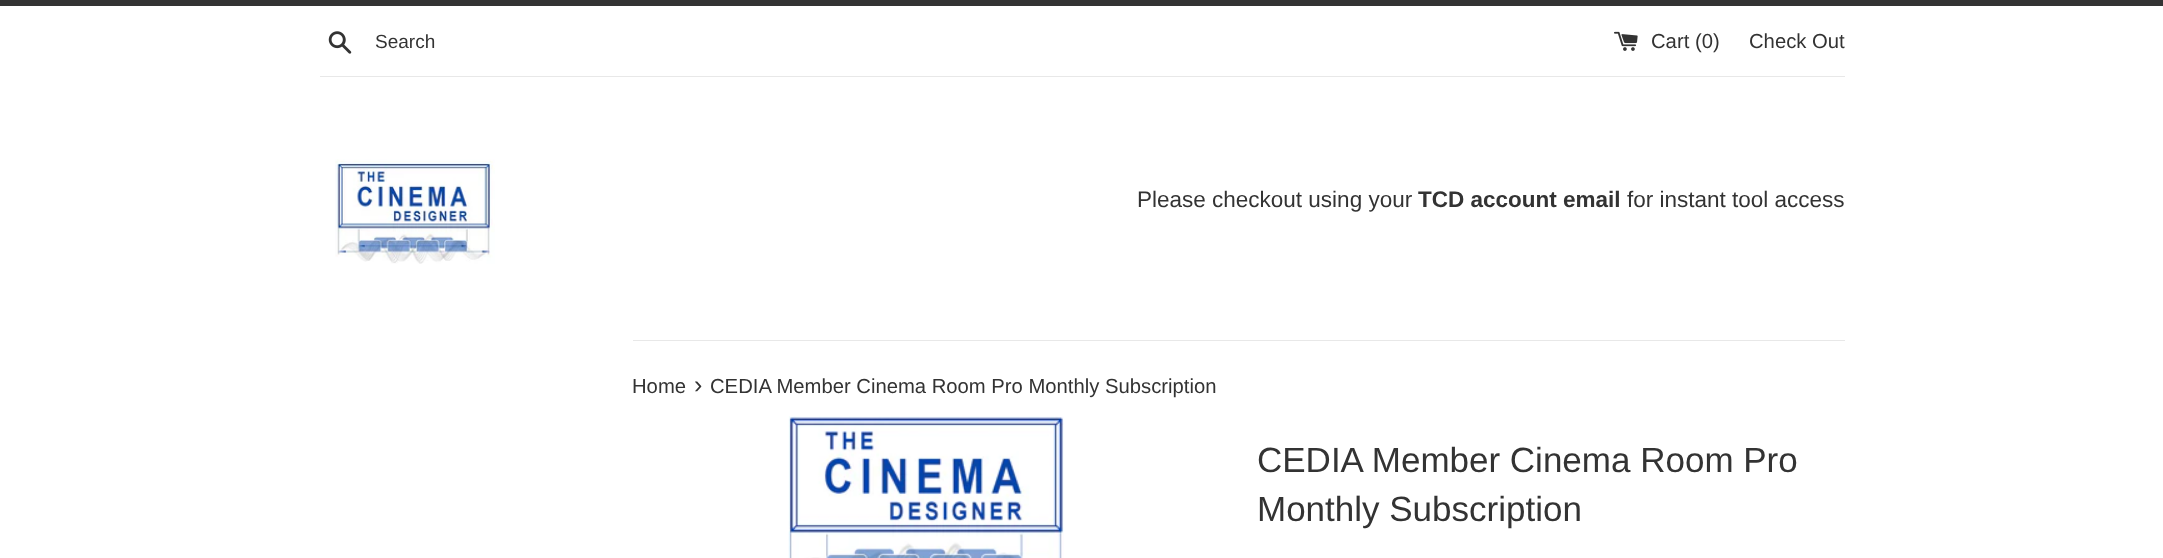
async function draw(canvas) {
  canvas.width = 2163;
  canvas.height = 558;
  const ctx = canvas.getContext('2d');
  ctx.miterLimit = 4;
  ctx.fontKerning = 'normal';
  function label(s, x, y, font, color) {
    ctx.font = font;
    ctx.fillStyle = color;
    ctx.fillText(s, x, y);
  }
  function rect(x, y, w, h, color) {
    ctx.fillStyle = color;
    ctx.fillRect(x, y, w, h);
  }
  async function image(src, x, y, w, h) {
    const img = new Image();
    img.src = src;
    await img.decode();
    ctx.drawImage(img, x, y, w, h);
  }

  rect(0, 0, 2163, 558, '#fff');
  rect(0, 0, 2163, 6, '#333');
  await image('assets/img1.png', 328, 31, 24, 23);
  label('Search', 375, 48, '19px Liberation Sans', '#333');
  await image('assets/img2.png', 1614, 31, 24, 20);
  label('Cart (0)', 1651, 48, '20.25px Liberation Sans', '#333');
  label('Check Out', 1749, 48, '20.25px Liberation Sans', '#333');
  rect(320, 76, 1525, 1, '#e8e8e8');
  await image('assets/img3.png', 335, 159, 160, 105);
  label('Please checkout using your', 1137, 207, '22.5px Liberation Sans', '#333');
  label('TCD account email', 1418, 207, 'bold 22.5px Liberation Sans', '#333');
  label('for instant tool access', 1627, 207, '22.5px Liberation Sans', '#333');
  rect(633, 340, 1212, 1, '#e8e8e8');
  label('Home', 632, 393, '20.25px Liberation Sans', '#333');
  label('›', 694, 393, '25px Liberation Sans', '#333');
  label('CEDIA Member Cinema Room Pro Monthly Subscription', 710, 393, '20.25px Liberation Sans', '#333');
  await image('assets/img4.png', 788, 416, 276, 142);
  label('CEDIA Member Cinema Room Pro', 1257, 472, '35px Arimo', '#333');
  label('Monthly Subscription', 1257, 521, '35px Arimo', '#333');
}

draw(document.querySelector('canvas'));
